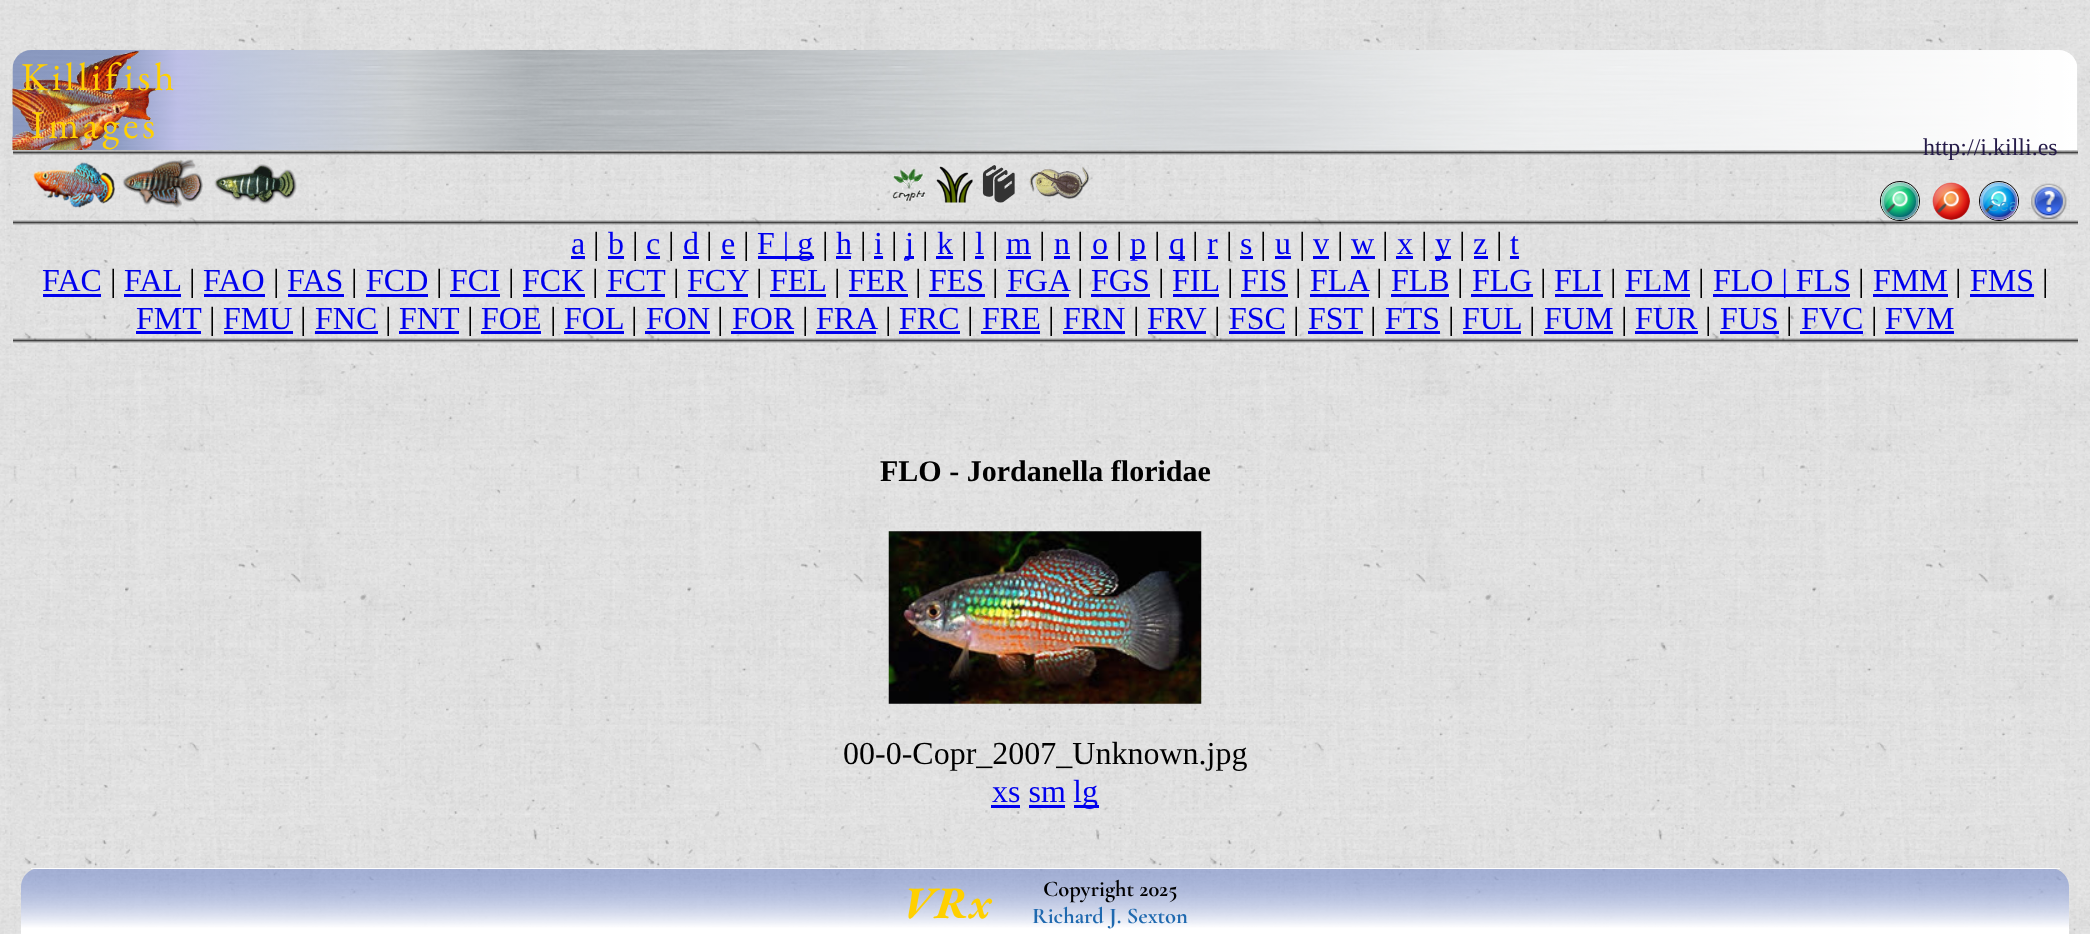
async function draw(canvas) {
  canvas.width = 2090;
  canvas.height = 934;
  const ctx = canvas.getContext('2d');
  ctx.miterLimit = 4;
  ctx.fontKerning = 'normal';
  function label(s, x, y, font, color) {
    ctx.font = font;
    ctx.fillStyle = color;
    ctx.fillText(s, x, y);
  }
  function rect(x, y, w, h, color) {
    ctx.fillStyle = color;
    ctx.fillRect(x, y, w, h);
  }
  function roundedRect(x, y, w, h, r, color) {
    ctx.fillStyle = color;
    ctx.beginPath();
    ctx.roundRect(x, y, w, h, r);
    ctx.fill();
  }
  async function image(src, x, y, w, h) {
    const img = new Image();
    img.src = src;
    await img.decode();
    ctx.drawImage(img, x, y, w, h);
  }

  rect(0, 0, 2090, 934, '#fff');
  await image('assets/img1.png', 0, 0, 2090, 934);
  await image('assets/img2.png', 12, 50, 2066, 100);
  await image('assets/img3.png', 12, 51, 145, 99);
  ctx.letterSpacing = '3.75px';
  label('Killifish', 21, 90, '39.5px EB Garamond', '#ffd000');
  label('Images', 31, 138, '39.5px EB Garamond', '#ffd000');
  await image('assets/img4.png', 33, 162, 82, 46);
  await image('assets/img5.png', 122, 159, 81, 49);
  await image('assets/img6.png', 214, 164, 83, 41);
  await image('assets/img7.png', 892, 168, 34, 34);
  await image('assets/img8.png', 936, 166, 37, 37);
  await image('assets/img9.png', 982, 165, 33, 38);
  await image('assets/img10.png', 1029, 166, 61, 34);
  ctx.letterSpacing = '0px';
  label('http://i.killi.es', 1923, 155, '24px Liberation Serif', '#261c4a');
  ctx.beginPath();
  ctx.arc(1900, 201, 19.5, 0, 2 * Math.PI);
  ctx.strokeStyle = '#000000fc';
  ctx.stroke();
  roundedRect(1881, 183, 38, 37, 18.5, '#d0ffd0');
  await image('assets/img11.png', 1881, 182, 38, 38);
  ctx.beginPath();
  ctx.roundRect(1882.5, 184.5, 35, 34, 17);
  ctx.strokeStyle = '#ffffff59';
  ctx.lineWidth = 3;
  ctx.stroke();
  await image('assets/img12.png', 1932, 182, 38, 38);
  ctx.beginPath();
  ctx.arc(1999, 201, 19.5, 0, 2 * Math.PI);
  ctx.strokeStyle = '#000000fc';
  ctx.lineWidth = 1;
  ctx.stroke();
  roundedRect(1980, 183, 38, 37, 18.5, '#d0d0ff');
  await image('assets/img13.png', 1980, 182, 38, 38);
  ctx.beginPath();
  ctx.roundRect(1981.5, 184.5, 35, 34, 17);
  ctx.strokeStyle = '#ffffff59';
  ctx.lineWidth = 3;
  ctx.stroke();
  ctx.save();
  ctx.beginPath();
  ctx.rect(1988, 196, 27, 19);
  ctx.clip();
  label('Sea', 1988, 211, '17px Liberation Sans', '#399cd4');
  ctx.restore();
  await image('assets/img14.png', 2031, 183, 36, 37);
  label('a', 571, 254, '32px Liberation Serif', '#00e');
  rect(571, 256, 14, 3, '#00e');
  label('|', 593, 254, '32px Liberation Serif', '#000');
  label('b', 608, 254, '32px Liberation Serif', '#00e');
  rect(608, 256, 16, 3, '#00e');
  label('|', 632, 254, '32px Liberation Serif', '#000');
  label('c', 646, 254, '32px Liberation Serif', '#00e');
  rect(646, 256, 14, 3, '#00e');
  label('|', 668, 254, '32px Liberation Serif', '#000');
  label('d', 683, 254, '32px Liberation Serif', '#00e');
  rect(683, 256, 16, 3, '#00e');
  label('|', 706, 254, '32px Liberation Serif', '#000');
  label('e', 721, 254, '32px Liberation Serif', '#00e');
  rect(721, 256, 14, 3, '#00e');
  label('|', 743, 254, '32px Liberation Serif', '#000');
  rect(758, 256, 56, 3, '#00e');
  label('F | g', 757, 254, '32px Liberation Serif', '#00e');
  label('|', 822, 254, '32px Liberation Serif', '#000');
  label('h', 836, 254, '32px Liberation Serif', '#00e');
  rect(836, 256, 15, 3, '#00e');
  label('|', 860, 254, '32px Liberation Serif', '#000');
  label('i', 874, 254, '32px Liberation Serif', '#00e');
  rect(874, 256, 9, 3, '#00e');
  label('|', 891, 254, '32px Liberation Serif', '#000');
  rect(905, 256, 9, 3, '#00e');
  label('j', 905, 254, '32px Liberation Serif', '#00e');
  label('|', 922, 254, '32px Liberation Serif', '#000');
  label('k', 937, 254, '32px Liberation Serif', '#00e');
  rect(936, 256, 17, 3, '#00e');
  label('|', 961, 254, '32px Liberation Serif', '#000');
  label('l', 975, 254, '32px Liberation Serif', '#00e');
  rect(975, 256, 9, 3, '#00e');
  label('|', 992, 254, '32px Liberation Serif', '#000');
  label('m', 1006, 254, '32px Liberation Serif', '#00e');
  rect(1006, 256, 25, 3, '#00e');
  label('|', 1039, 254, '32px Liberation Serif', '#000');
  label('n', 1054, 254, '32px Liberation Serif', '#00e');
  rect(1054, 256, 16, 3, '#00e');
  label('|', 1077, 254, '32px Liberation Serif', '#000');
  label('o', 1092, 254, '32px Liberation Serif', '#00e');
  rect(1091, 256, 17, 3, '#00e');
  label('|', 1116, 254, '32px Liberation Serif', '#000');
  rect(1130, 256, 16, 3, '#00e');
  label('p', 1130, 254, '32px Liberation Serif', '#00e');
  label('|', 1154, 254, '32px Liberation Serif', '#000');
  rect(1169, 256, 16, 3, '#00e');
  label('q', 1169, 254, '32px Liberation Serif', '#00e');
  label('|', 1192, 254, '32px Liberation Serif', '#000');
  label('r', 1207, 254, '32px Liberation Serif', '#00e');
  rect(1208, 256, 10, 3, '#00e');
  label('|', 1226, 254, '32px Liberation Serif', '#000');
  label('s', 1240, 254, '32px Liberation Serif', '#00e');
  rect(1240, 256, 13, 3, '#00e');
  label('|', 1260, 254, '32px Liberation Serif', '#000');
  label('u', 1275, 254, '32px Liberation Serif', '#00e');
  rect(1275, 256, 16, 3, '#00e');
  label('|', 1299, 254, '32px Liberation Serif', '#000');
  label('v', 1313, 254, '32px Liberation Serif', '#00e');
  rect(1313, 256, 16, 3, '#00e');
  label('|', 1337, 254, '32px Liberation Serif', '#000');
  label('w', 1351, 254, '32px Liberation Serif', '#00e');
  rect(1351, 256, 24, 3, '#00e');
  label('|', 1382, 254, '32px Liberation Serif', '#000');
  label('x', 1397, 254, '32px Liberation Serif', '#00e');
  rect(1396, 256, 17, 3, '#00e');
  label('|', 1421, 254, '32px Liberation Serif', '#000');
  rect(1435, 256, 16, 3, '#00e');
  label('y', 1435, 254, '32px Liberation Serif', '#00e');
  label('|', 1459, 254, '32px Liberation Serif', '#000');
  label('z', 1473, 254, '32px Liberation Serif', '#00e');
  rect(1474, 256, 14, 3, '#00e');
  label('|', 1496, 254, '32px Liberation Serif', '#000');
  label('t', 1510, 254, '32px Liberation Serif', '#00e');
  rect(1510, 256, 9, 3, '#00e');
  label('FAC', 42, 291, '32px Liberation Serif', '#00e');
  rect(43, 294, 58, 3, '#00e');
  label('|', 110, 291, '32px Liberation Serif', '#000');
  label('FAL', 124, 291, '32px Liberation Serif', '#00e');
  rect(124, 294, 57, 3, '#00e');
  label('|', 189, 291, '32px Liberation Serif', '#000');
  label('FAO', 203, 291, '32px Liberation Serif', '#00e');
  rect(204, 294, 61, 3, '#00e');
  label('|', 273, 291, '32px Liberation Serif', '#000');
  label('FAS', 287, 291, '32px Liberation Serif', '#00e');
  rect(288, 294, 56, 3, '#00e');
  label('|', 351, 291, '32px Liberation Serif', '#000');
  label('FCD', 366, 291, '32px Liberation Serif', '#00e');
  rect(366, 294, 62, 3, '#00e');
  label('|', 436, 291, '32px Liberation Serif', '#000');
  label('FCI', 450, 291, '32px Liberation Serif', '#00e');
  rect(450, 294, 50, 3, '#00e');
  label('|', 508, 291, '32px Liberation Serif', '#000');
  label('FCK', 522, 291, '32px Liberation Serif', '#00e');
  rect(523, 294, 62, 3, '#00e');
  label('|', 592, 291, '32px Liberation Serif', '#000');
  label('FCT', 607, 291, '32px Liberation Serif', '#00e');
  rect(606, 294, 59, 3, '#00e');
  label('|', 673, 291, '32px Liberation Serif', '#000');
  label('FCY', 687, 291, '32px Liberation Serif', '#00e');
  rect(688, 294, 60, 3, '#00e');
  label('|', 756, 291, '32px Liberation Serif', '#000');
  label('FEL', 770, 291, '32px Liberation Serif', '#00e');
  rect(770, 294, 56, 3, '#00e');
  label('|', 834, 291, '32px Liberation Serif', '#000');
  label('FER', 848, 291, '32px Liberation Serif', '#00e');
  rect(849, 294, 59, 3, '#00e');
  label('|', 915, 291, '32px Liberation Serif', '#000');
  label('FES', 929, 291, '32px Liberation Serif', '#00e');
  rect(929, 294, 56, 3, '#00e');
  label('|', 992, 291, '32px Liberation Serif', '#000');
  label('FGA', 1007, 291, '32px Liberation Serif', '#00e');
  rect(1006, 294, 63, 3, '#00e');
  label('|', 1077, 291, '32px Liberation Serif', '#000');
  label('FGS', 1091, 291, '32px Liberation Serif', '#00e');
  rect(1091, 294, 59, 3, '#00e');
  label('|', 1158, 291, '32px Liberation Serif', '#000');
  label('FIL', 1172, 291, '32px Liberation Serif', '#00e');
  rect(1173, 294, 46, 3, '#00e');
  label('|', 1227, 291, '32px Liberation Serif', '#000');
  label('FIS', 1241, 291, '32px Liberation Serif', '#00e');
  rect(1241, 294, 47, 3, '#00e');
  label('|', 1295, 291, '32px Liberation Serif', '#000');
  label('FLA', 1310, 291, '32px Liberation Serif', '#00e');
  rect(1310, 294, 59, 3, '#00e');
  label('|', 1376, 291, '32px Liberation Serif', '#000');
  label('FLB', 1391, 291, '32px Liberation Serif', '#00e');
  rect(1391, 294, 58, 3, '#00e');
  label('|', 1457, 291, '32px Liberation Serif', '#000');
  label('FLG', 1472, 291, '32px Liberation Serif', '#00e');
  rect(1471, 294, 62, 3, '#00e');
  label('|', 1540, 291, '32px Liberation Serif', '#000');
  label('FLI', 1554, 291, '32px Liberation Serif', '#00e');
  rect(1555, 294, 48, 3, '#00e');
  label('|', 1610, 291, '32px Liberation Serif', '#000');
  label('FLM', 1625, 291, '32px Liberation Serif', '#00e');
  rect(1625, 294, 65, 3, '#00e');
  label('|', 1698, 291, '32px Liberation Serif', '#000');
  rect(1713, 294, 137, 3, '#00e');
  label('FLO | FLS', 1713, 291, '32px Liberation Serif', '#00e');
  label('|', 1858, 291, '32px Liberation Serif', '#000');
  label('FMM', 1873, 291, '32px Liberation Serif', '#00e');
  rect(1873, 294, 75, 3, '#00e');
  label('|', 1955, 291, '32px Liberation Serif', '#000');
  label('FMS', 1970, 291, '32px Liberation Serif', '#00e');
  rect(1970, 294, 64, 3, '#00e');
  label('|', 2042, 291, '32px Liberation Serif', '#000');
  label('FMT', 136, 329, '32px Liberation Serif', '#00e');
  rect(136, 331, 65, 3, '#00e');
  label('|', 209, 329, '32px Liberation Serif', '#000');
  label('FMU', 223, 329, '32px Liberation Serif', '#00e');
  rect(224, 331, 69, 3, '#00e');
  label('|', 300, 329, '32px Liberation Serif', '#000');
  label('FNC', 315, 329, '32px Liberation Serif', '#00e');
  rect(315, 331, 63, 3, '#00e');
  label('|', 385, 329, '32px Liberation Serif', '#000');
  label('FNT', 399, 329, '32px Liberation Serif', '#00e');
  rect(399, 331, 60, 3, '#00e');
  label('|', 467, 329, '32px Liberation Serif', '#000');
  label('FOE', 481, 329, '32px Liberation Serif', '#00e');
  rect(481, 331, 60, 3, '#00e');
  label('|', 550, 329, '32px Liberation Serif', '#000');
  label('FOL', 564, 329, '32px Liberation Serif', '#00e');
  rect(564, 331, 60, 3, '#00e');
  label('|', 631, 329, '32px Liberation Serif', '#000');
  label('FON', 646, 329, '32px Liberation Serif', '#00e');
  rect(645, 331, 65, 3, '#00e');
  label('|', 717, 329, '32px Liberation Serif', '#000');
  label('FOR', 732, 329, '32px Liberation Serif', '#00e');
  rect(731, 331, 63, 3, '#00e');
  label('|', 802, 329, '32px Liberation Serif', '#000');
  label('FRA', 816, 329, '32px Liberation Serif', '#00e');
  rect(816, 331, 60, 3, '#00e');
  label('|', 885, 329, '32px Liberation Serif', '#000');
  label('FRC', 899, 329, '32px Liberation Serif', '#00e');
  rect(899, 331, 61, 3, '#00e');
  label('|', 967, 329, '32px Liberation Serif', '#000');
  label('FRE', 982, 329, '32px Liberation Serif', '#00e');
  rect(981, 331, 59, 3, '#00e');
  label('|', 1048, 329, '32px Liberation Serif', '#000');
  label('FRN', 1063, 329, '32px Liberation Serif', '#00e');
  rect(1063, 331, 62, 3, '#00e');
  label('|', 1133, 329, '32px Liberation Serif', '#000');
  label('FRV', 1147, 329, '32px Liberation Serif', '#00e');
  rect(1148, 331, 58, 3, '#00e');
  label('|', 1214, 329, '32px Liberation Serif', '#000');
  label('FSC', 1229, 329, '32px Liberation Serif', '#00e');
  rect(1229, 331, 56, 3, '#00e');
  label('|', 1293, 329, '32px Liberation Serif', '#000');
  label('FST', 1308, 329, '32px Liberation Serif', '#00e');
  rect(1308, 331, 55, 3, '#00e');
  label('|', 1370, 329, '32px Liberation Serif', '#000');
  label('FTS', 1385, 329, '32px Liberation Serif', '#00e');
  rect(1385, 331, 55, 3, '#00e');
  label('|', 1448, 329, '32px Liberation Serif', '#000');
  label('FUL', 1462, 329, '32px Liberation Serif', '#00e');
  rect(1463, 331, 58, 3, '#00e');
  label('|', 1529, 329, '32px Liberation Serif', '#000');
  label('FUM', 1544, 329, '32px Liberation Serif', '#00e');
  rect(1544, 331, 69, 3, '#00e');
  label('|', 1621, 329, '32px Liberation Serif', '#000');
  label('FUR', 1635, 329, '32px Liberation Serif', '#00e');
  rect(1635, 331, 63, 3, '#00e');
  label('|', 1705, 329, '32px Liberation Serif', '#000');
  label('FUS', 1720, 329, '32px Liberation Serif', '#00e');
  rect(1720, 331, 59, 3, '#00e');
  label('|', 1786, 329, '32px Liberation Serif', '#000');
  label('FVC', 1801, 329, '32px Liberation Serif', '#00e');
  rect(1800, 331, 63, 3, '#00e');
  label('|', 1871, 329, '32px Liberation Serif', '#000');
  label('FVM', 1885, 329, '32px Liberation Serif', '#00e');
  rect(1885, 331, 69, 3, '#00e');
  label('FLO - Jordanella floridae', 880, 481, 'bold 30px Liberation Serif', '#000');
  await image('assets/img15.png', 888, 531, 314, 173);
  label('00-0-Copr_2007_Unknown.jpg', 843, 764, '32px Liberation Serif', '#000');
  label('xs sm', 992, 802, '32px Liberation Serif', '#00e');
  rect(991, 805, 29, 3, '#00e');
  rect(1074, 805, 25, 3, '#00e');
  label('lg', 1073, 802, '32px Liberation Serif', '#00e');
  rect(1029, 805, 36, 3, '#00e');
  rect(31, 868, 2029, 1, '#ffffffcc');
  label('VRx', 902, 918, 'italic bold 45px EB Garamond', '#ffd000');
  label('Copyright 2025', 1043, 896, 'bold 22.5px Cormorant Garamond', '#000');
  label('Richard J. Sexton', 1032, 923, 'bold 22.5px Cormorant Garamond', '#1f69af');
}

draw(document.querySelector('canvas'));
